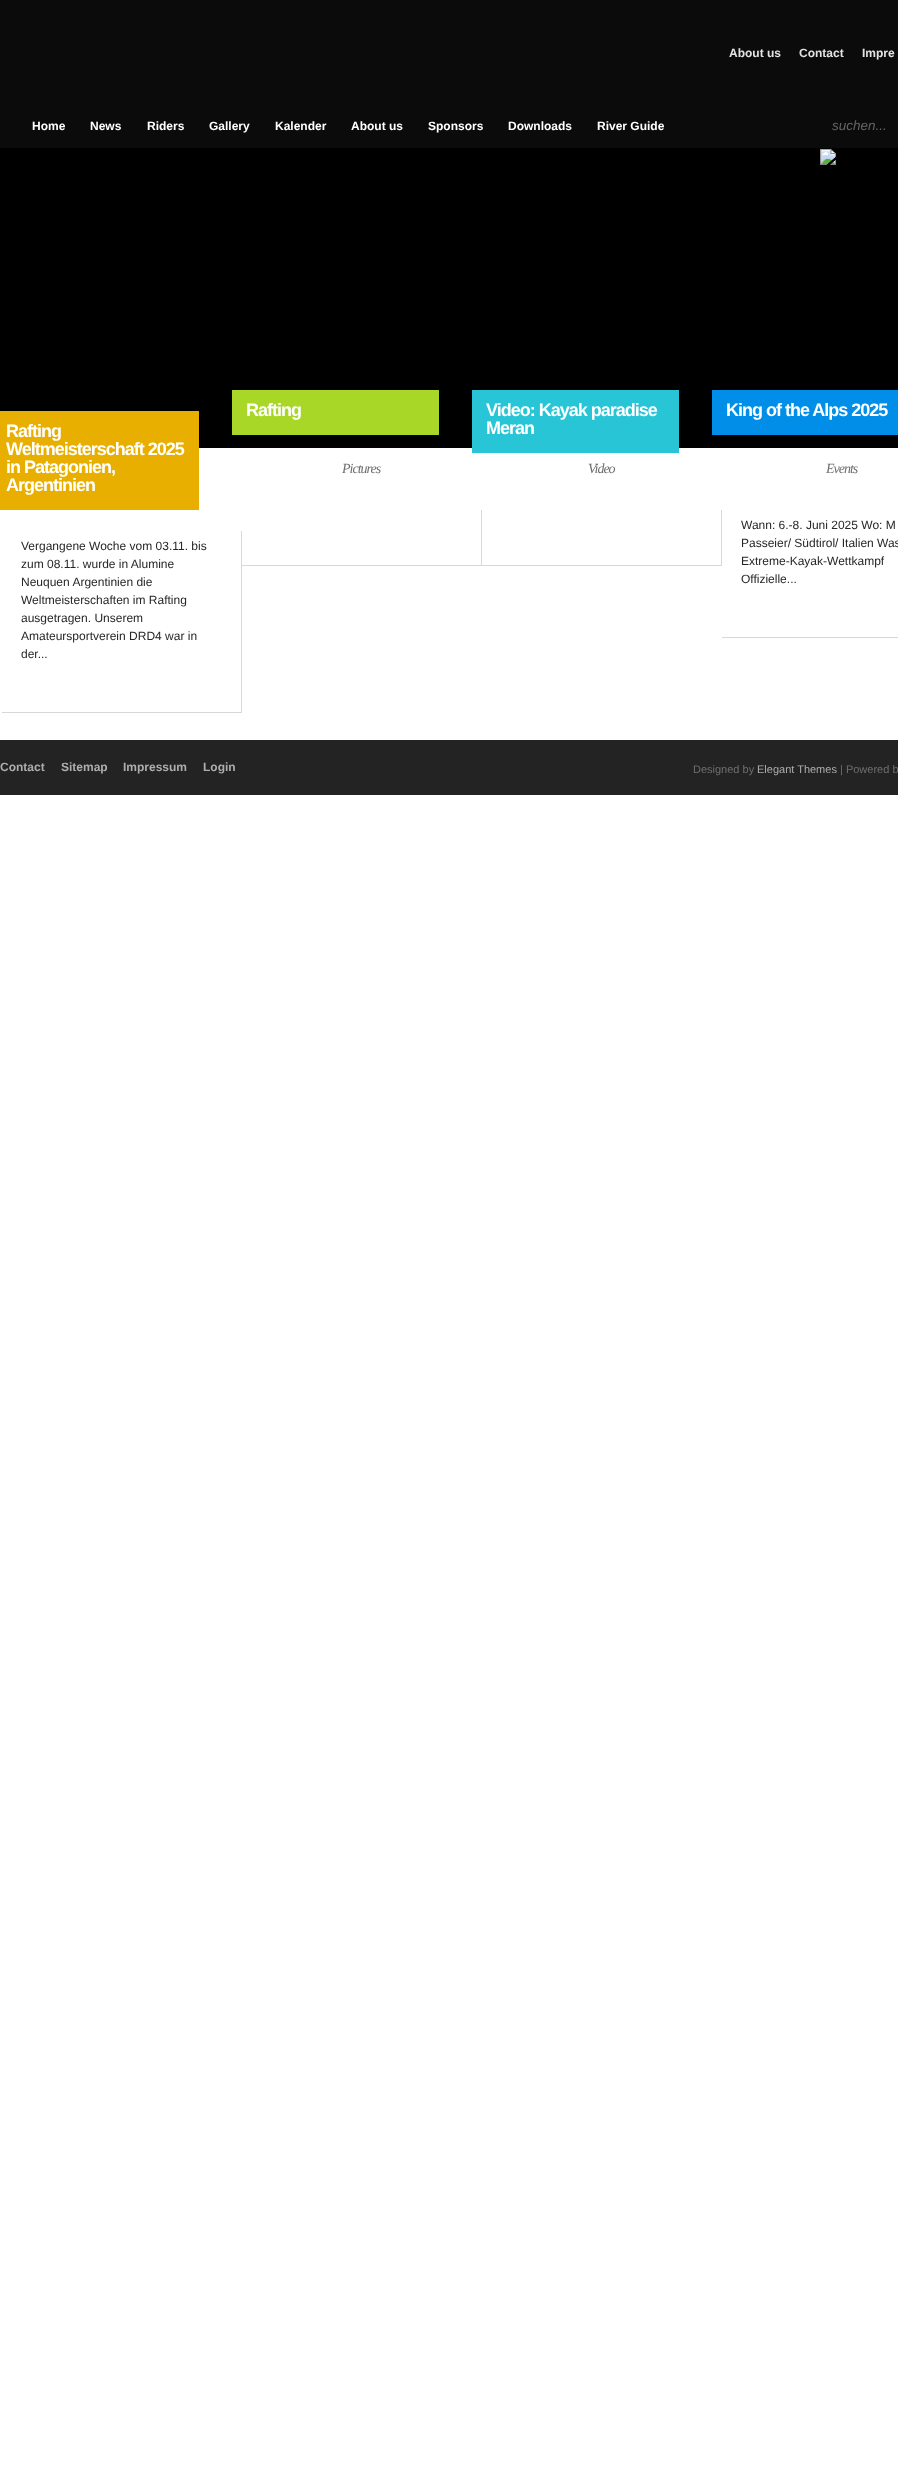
async function draw(canvas) {
  canvas.width = 898;
  canvas.height = 2475;
  const ctx = canvas.getContext('2d');
  ctx.miterLimit = 4;
  ctx.fontKerning = 'normal';
  function label(s, x, y, font, color) {
    ctx.font = font;
    ctx.fillStyle = color;
    ctx.fillText(s, x, y);
  }
  function rect(x, y, w, h, color) {
    ctx.fillStyle = color;
    ctx.fillRect(x, y, w, h);
  }
  async function image(src, x, y, w, h) {
    const img = new Image();
    img.src = src;
    await img.decode();
    ctx.drawImage(img, x, y, w, h);
  }

  rect(0, 0, 898, 2475, '#fff');
  rect(0, 0, 898, 148, '#0b0b0b');
  label('About us', 729, 57, 'bold 12px Liberation Sans', '#e3e3e3');
  label('Contact', 799, 57, 'bold 12px Liberation Sans', '#e3e3e3');
  label('Impre', 862, 57, 'bold 12px Liberation Sans', '#e3e3e3');
  label('Home', 32, 130, 'bold 12px Liberation Sans', '#fff');
  label('News', 90, 130, 'bold 12px Liberation Sans', '#fff');
  label('Riders', 147, 130, 'bold 12px Liberation Sans', '#fff');
  label('Gallery', 209, 130, 'bold 12px Liberation Sans', '#fff');
  label('Kalender', 275, 130, 'bold 12px Liberation Sans', '#fff');
  label('About us', 351, 130, 'bold 12px Liberation Sans', '#fff');
  label('Sponsors', 428, 130, 'bold 12px Liberation Sans', '#fff');
  label('Downloads', 508, 130, 'bold 12px Liberation Sans', '#fff');
  label('River Guide', 597, 130, 'bold 12px Liberation Sans', '#fff');
  label('suchen...', 832, 130, 'italic 13.5px Liberation Sans', '#646464');
  rect(0, 148, 898, 300, '#000');
  await image('assets/img1.png', 820, 149, 16, 16);
  rect(241, 531, 1, 182, '#d8d8d8');
  rect(2, 712, 240, 1, '#d8d8d8');
  rect(0, 411, 199, 99, '#e8af00');
  ctx.letterSpacing = '-1px';
  label('Rafting', 6, 437, 'bold 18px Liberation Sans', '#fff');
  label('Weltmeisterschaft 2025', 6, 455, 'bold 18px Liberation Sans', '#fff');
  label('in Patagonien,', 6, 473, 'bold 18px Liberation Sans', '#fff');
  label('Argentinien', 6, 491, 'bold 18px Liberation Sans', '#fff');
  ctx.letterSpacing = '0px';
  label('Vergangene Woche vom 03.11. bis', 21, 550, '12px Liberation Sans', '#262626');
  label('zum 08.11. wurde in Alumine', 21, 568, '12px Liberation Sans', '#262626');
  label('Neuquen Argentinien die', 21, 586, '12px Liberation Sans', '#262626');
  label('Weltmeisterschaften im Rafting', 21, 604, '12px Liberation Sans', '#262626');
  label('ausgetragen. Unserem', 21, 622, '12px Liberation Sans', '#262626');
  label('Amateursportverein DRD4 war in', 21, 640, '12px Liberation Sans', '#262626');
  label('der...', 21, 658, '12px Liberation Sans', '#262626');
  rect(481, 510, 1, 56, '#d8d8d8');
  rect(242, 565, 240, 1, '#d8d8d8');
  rect(232, 390, 207, 45, '#a8d728');
  ctx.letterSpacing = '-1px';
  label('Rafting', 246, 416, 'bold 18px Liberation Sans', '#fff');
  label('Pictures', 342, 473, 'italic 14px Liberation Serif', '#6f6f6f');
  rect(721, 510, 1, 56, '#d8d8d8');
  rect(482, 565, 240, 1, '#d8d8d8');
  rect(472, 390, 207, 63, '#28c5d7');
  label('Video: Kayak paradise', 486, 416, 'bold 18px Liberation Sans', '#fff');
  label('Meran', 486, 434, 'bold 18px Liberation Sans', '#fff');
  label('Video', 588, 473, 'italic 14px Liberation Serif', '#6f6f6f');
  rect(722, 637, 176, 1, '#d8d8d8');
  rect(712, 390, 186, 45, '#008ee8');
  label('King of the Alps 2025', 726, 416, 'bold 18px Liberation Sans', '#fff');
  ctx.letterSpacing = '0px';
  label('Wann: 6.-8. Juni 2025 Wo: M', 741, 529, '12px Liberation Sans', '#262626');
  label('Passeier/ Südtirol/ Italien Was', 741, 547, '12px Liberation Sans', '#262626');
  label('Extreme-Kayak-Wettkampf', 741, 565, '12px Liberation Sans', '#262626');
  label('Offizielle...', 741, 583, '12px Liberation Sans', '#262626');
  ctx.letterSpacing = '-1px';
  label('Events', 826, 473, 'italic 14px Liberation Serif', '#6f6f6f');
  rect(0, 740, 898, 55, '#232323');
  ctx.letterSpacing = '0px';
  label('Contact', 0, 771, 'bold 12px Liberation Sans', '#aeaeae');
  label('Sitemap', 61, 771, 'bold 12px Liberation Sans', '#aeaeae');
  label('Impressum', 123, 771, 'bold 12px Liberation Sans', '#aeaeae');
  label('Login', 203, 771, 'bold 12px Liberation Sans', '#aeaeae');
  label('Designed by', 693, 773, '11px Liberation Sans', '#6f6f6f');
  label('Elegant Themes', 757, 773, '11px Liberation Sans', '#aeaeae');
  label('| Powered b', 840, 773, '11px Liberation Sans', '#6f6f6f');
}

draw(document.querySelector('canvas'));
